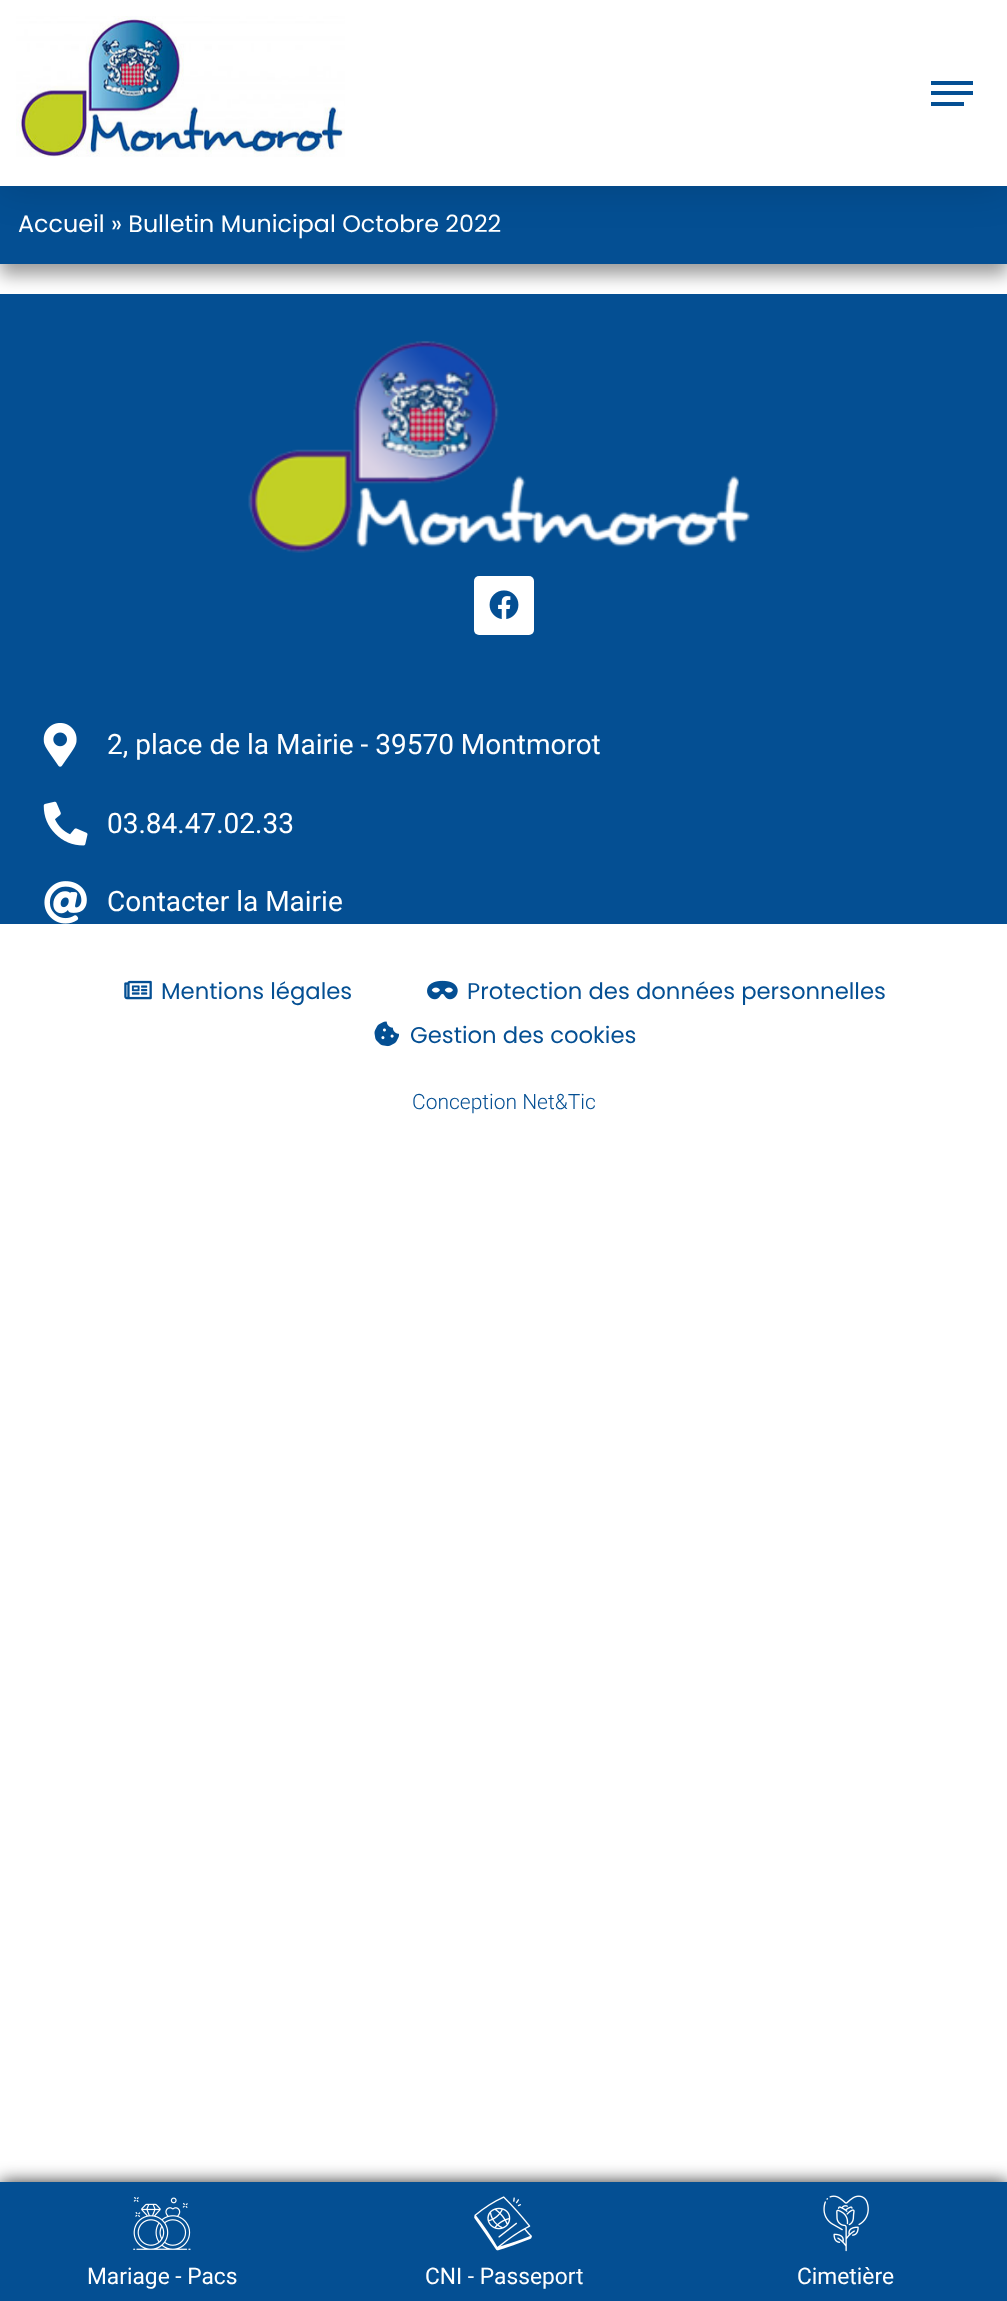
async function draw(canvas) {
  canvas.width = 1007;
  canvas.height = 2301;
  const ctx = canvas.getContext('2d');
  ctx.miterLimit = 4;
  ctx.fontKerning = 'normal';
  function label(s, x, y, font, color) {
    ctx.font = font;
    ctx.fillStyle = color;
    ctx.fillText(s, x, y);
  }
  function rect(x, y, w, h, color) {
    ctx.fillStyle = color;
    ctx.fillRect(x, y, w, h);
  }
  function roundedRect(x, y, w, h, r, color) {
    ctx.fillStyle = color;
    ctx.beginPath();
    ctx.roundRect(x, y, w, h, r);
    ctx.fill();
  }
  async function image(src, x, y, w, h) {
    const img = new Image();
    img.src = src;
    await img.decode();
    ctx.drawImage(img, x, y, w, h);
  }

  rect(0, 0, 1007, 2301, '#fff');
  ctx.fillStyle = '#00000063';
  ctx.filter = 'blur(9px)';
  ctx.beginPath();
  ctx.rect(0, 196, 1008, 79);
  ctx.fill();
  ctx.filter = 'none';
  rect(0, 186, 1007, 78, '#044f93');
  ctx.fillStyle = '#00000026';
  ctx.filter = 'blur(21px)';
  ctx.beginPath();
  ctx.rect(0, 0, 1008, 186);
  ctx.fill();
  ctx.filter = 'none';
  rect(0, 0, 1007, 186, '#fff');
  await image('assets/img1.png', 16, 16, 329, 141);
  rect(931, 91, 42, 4, '#044f93');
  rect(931, 81, 42, 4, '#044f93');
  rect(931, 102, 33, 4, '#044f93');
  label('Accueil » Bulletin Municipal Octobre 2022', 18, 232, '23.8px Poppins', '#fff');
  rect(0, 294, 1007, 630, '#044f93');
  await image('assets/img2.png', 248, 341, 502, 212);
  roundedRect(474, 576, 60, 59, 5, '#fff');
  await image('assets/img3.png', 489, 590, 30, 29);
  await image('assets/img4.png', 43, 723, 34, 44);
  label('2, place de la Mairie - 39570 Montmorot', 107, 754, '28px Roboto', '#fff');
  await image('assets/img5.png', 43, 801, 45, 45);
  label('03.84.47.02.33', 107, 833, '28px Roboto', '#fff');
  await image('assets/img6.png', 44, 881, 43, 43);
  label('Contacter la Mairie', 107, 911, '28px Roboto', '#fff');
  await image('assets/img7.png', 124, 980, 28, 20);
  label('Mentions légales', 161, 999, '22.75px Poppins', '#044f93');
  await image('assets/img8.png', 427, 980, 31, 20);
  label('Protection des données personnelles', 467, 999, '22.75px Poppins', '#044f93');
  await image('assets/img9.png', 374, 1021, 25, 26);
  label('Gestion des cookies', 410, 1043, '22.75px Poppins', '#044f93');
  label('Conception Net&Tic', 412, 1109, '300 21px Roboto', '#044f93');
  ctx.fillStyle = '#333';
  ctx.filter = 'blur(9px)';
  ctx.beginPath();
  ctx.rect(0, 2182, 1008, 119);
  ctx.fill();
  ctx.filter = 'none';
  rect(0, 2182, 1007, 119, '#044f93');
  await image('assets/img10.png', 133, 2197, 58, 53);
  label('Mariage - Pacs', 87, 2284, '22.75px Roboto', '#fff');
  await image('assets/img11.png', 474, 2196, 58, 55);
  label('CNI - Passeport', 425, 2284, '22.75px Roboto', '#fff');
  await image('assets/img12.png', 823, 2195, 46, 57);
  label('Cimetière', 797, 2284, '22.75px Roboto', '#fff');
}

draw(document.querySelector('canvas'));
